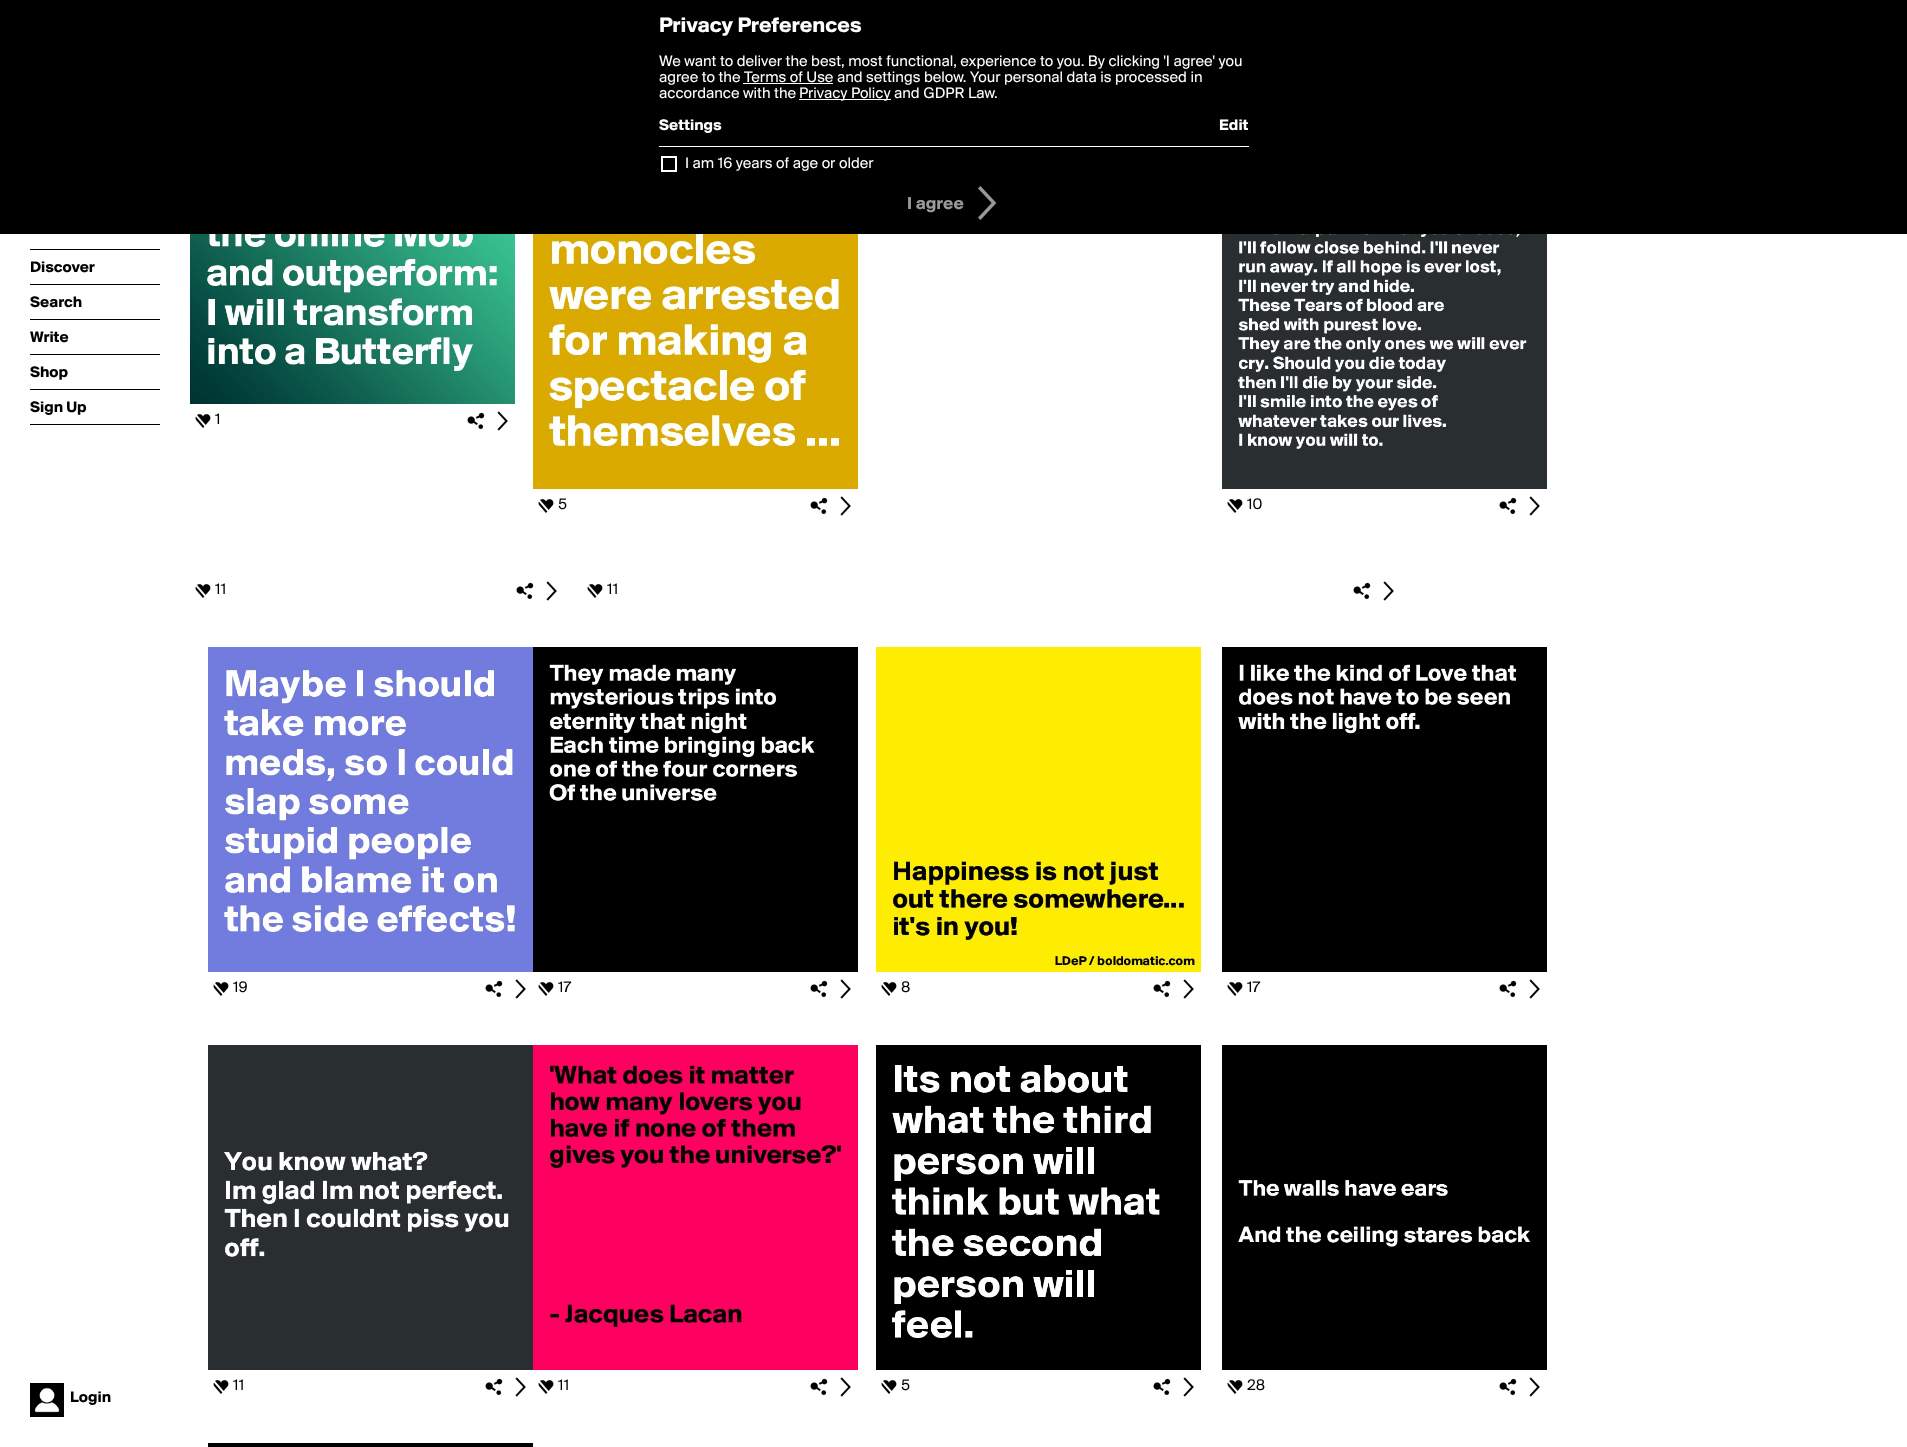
async function draw(canvas) {
  canvas.width = 1907;
  canvas.height = 1447;
  const ctx = canvas.getContext('2d');
  ctx.miterLimit = 4;
  ctx.fontKerning = 'normal';
  function label(s, x, y, font, color) {
    ctx.font = font;
    ctx.fillStyle = color;
    ctx.fillText(s, x, y);
  }
  function rect(x, y, w, h, color) {
    ctx.fillStyle = color;
    ctx.fillRect(x, y, w, h);
  }
  async function image(src, x, y, w, h) {
    const img = new Image();
    img.src = src;
    await img.decode();
    ctx.drawImage(img, x, y, w, h);
  }

  rect(0, 0, 1907, 1447, '#fff');
  rect(0, 0, 1907, 234, '#000');
  label('Privacy Preferences', 659, 32, 'bold 22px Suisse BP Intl', '#fff');
  label('We want to deliver the best, most functional, experience to you. By clicking \'I agree\' you', 659, 66, '16px Suisse BP Intl', '#fff');
  label('agree to the Terms of Use and settings below. Your personal data is processed in', 659, 82, '16px Suisse BP Intl', '#fff');
  rect(743, 83, 90, 1, '#fff');
  label('accordance with the', 659, 98, '16px Suisse BP Intl', '#fff');
  rect(799, 99, 92, 1, '#fff');
  label('Privacy Policy and GDPR Law.', 799, 98, '16px Suisse BP Intl', '#fff');
  label('Settings', 659, 130, 'bold 16px Suisse BP Intl', '#fff');
  label('Edit', 1219, 130, 'bold 16px Suisse BP Intl', '#fff');
  rect(659, 146, 590, 1, '#fff');
  ctx.strokeStyle = '#fff';
  ctx.lineWidth = 2;
  ctx.strokeRect(662, 157, 14, 14);
  label('I am 16 years of age or older', 685, 168, '16px Suisse BP Intl', '#fff');
  label('I agree', 907, 209, 'bold 18px Suisse BP Intl', '#999');
  await image('assets/img1.png', 978, 186, 19, 34);
  rect(30, 249, 130, 1, '#000');
  rect(30, 284, 130, 1, '#000');
  label('Discover', 30, 272, 'bold 16px Suisse BP Intl', '#000');
  rect(30, 319, 130, 1, '#000');
  label('Search', 30, 307, 'bold 16px Suisse BP Intl', '#000');
  rect(30, 354, 130, 1, '#000');
  label('Write', 30, 342, 'bold 16px Suisse BP Intl', '#000');
  rect(30, 389, 130, 1, '#000');
  label('Shop', 30, 377, 'bold 16px Suisse BP Intl', '#000');
  rect(30, 424, 130, 1, '#000');
  label('Sign Up', 30, 412, 'bold 16px Suisse BP Intl', '#000');
  await image('assets/img2.png', 30, 1383, 34, 34);
  label('Login', 70, 1402, 'bold 16px Suisse BP Intl', '#000');
  await image('assets/img3.png', 190, 234, 325, 170);
  await image('assets/img4.png', 195, 414, 16, 14);
  label('1', 215, 424, '16px Suisse BP Intl', '#000');
  await image('assets/img5.png', 467, 412, 18, 18);
  await image('assets/img6.png', 497, 411, 11, 20);
  await image('assets/img7.png', 533, 234, 325, 255);
  await image('assets/img4.png', 538, 499, 16, 14);
  label('5', 558, 509, '16px Suisse BP Intl', '#000');
  await image('assets/img5.png', 810, 497, 18, 18);
  await image('assets/img6.png', 840, 496, 11, 20);
  await image('assets/img8.png', 1222, 234, 325, 255);
  await image('assets/img4.png', 1227, 499, 16, 14);
  label('10', 1247, 509, '16px Suisse BP Intl', '#000');
  await image('assets/img5.png', 1499, 497, 18, 18);
  await image('assets/img6.png', 1529, 496, 11, 20);
  await image('assets/img4.png', 195, 584, 16, 14);
  label('11', 215, 594, '16px Suisse BP Intl', '#000');
  await image('assets/img5.png', 516, 582, 18, 18);
  await image('assets/img6.png', 546, 581, 11, 20);
  await image('assets/img4.png', 587, 584, 16, 14);
  label('11', 607, 594, '16px Suisse BP Intl', '#000');
  await image('assets/img5.png', 1353, 582, 18, 18);
  await image('assets/img6.png', 1383, 581, 11, 20);
  await image('assets/img9.png', 208, 647, 325, 325);
  await image('assets/img4.png', 213, 982, 16, 14);
  label('19', 233, 992, '16px Suisse BP Intl', '#000');
  await image('assets/img5.png', 485, 980, 18, 18);
  await image('assets/img6.png', 515, 979, 11, 20);
  await image('assets/img10.png', 533, 647, 325, 325);
  await image('assets/img4.png', 538, 982, 16, 14);
  label('17', 558, 992, '16px Suisse BP Intl', '#000');
  await image('assets/img5.png', 810, 980, 18, 18);
  await image('assets/img6.png', 840, 979, 11, 20);
  await image('assets/img11.png', 876, 647, 325, 325);
  await image('assets/img4.png', 881, 982, 16, 14);
  label('8', 901, 992, '16px Suisse BP Intl', '#000');
  await image('assets/img5.png', 1153, 980, 18, 18);
  await image('assets/img6.png', 1183, 979, 11, 20);
  await image('assets/img12.png', 208, 1045, 325, 325);
  await image('assets/img4.png', 213, 1380, 16, 14);
  label('11', 233, 1390, '16px Suisse BP Intl', '#000');
  await image('assets/img5.png', 485, 1378, 18, 18);
  await image('assets/img6.png', 515, 1377, 11, 20);
  await image('assets/img13.png', 533, 1045, 325, 325);
  await image('assets/img4.png', 538, 1380, 16, 14);
  label('11', 558, 1390, '16px Suisse BP Intl', '#000');
  await image('assets/img5.png', 810, 1378, 18, 18);
  await image('assets/img6.png', 840, 1377, 11, 20);
  await image('assets/img14.png', 876, 1045, 325, 325);
  await image('assets/img4.png', 881, 1380, 16, 14);
  label('5', 901, 1390, '16px Suisse BP Intl', '#000');
  await image('assets/img5.png', 1153, 1378, 18, 18);
  await image('assets/img6.png', 1183, 1377, 11, 20);
  await image('assets/img15.png', 1222, 1045, 325, 325);
  await image('assets/img4.png', 1227, 1380, 16, 14);
  label('28', 1247, 1390, '16px Suisse BP Intl', '#000');
  await image('assets/img5.png', 1499, 1378, 18, 18);
  await image('assets/img6.png', 1529, 1377, 11, 20);
  rect(208, 1443, 325, 4, '#000');
  await image('assets/img16.png', 1222, 647, 325, 325);
  await image('assets/img4.png', 1227, 982, 16, 14);
  label('17', 1247, 992, '16px Suisse BP Intl', '#000');
  await image('assets/img5.png', 1499, 980, 18, 18);
  await image('assets/img6.png', 1529, 979, 11, 20);
}

draw(document.querySelector('canvas'));
